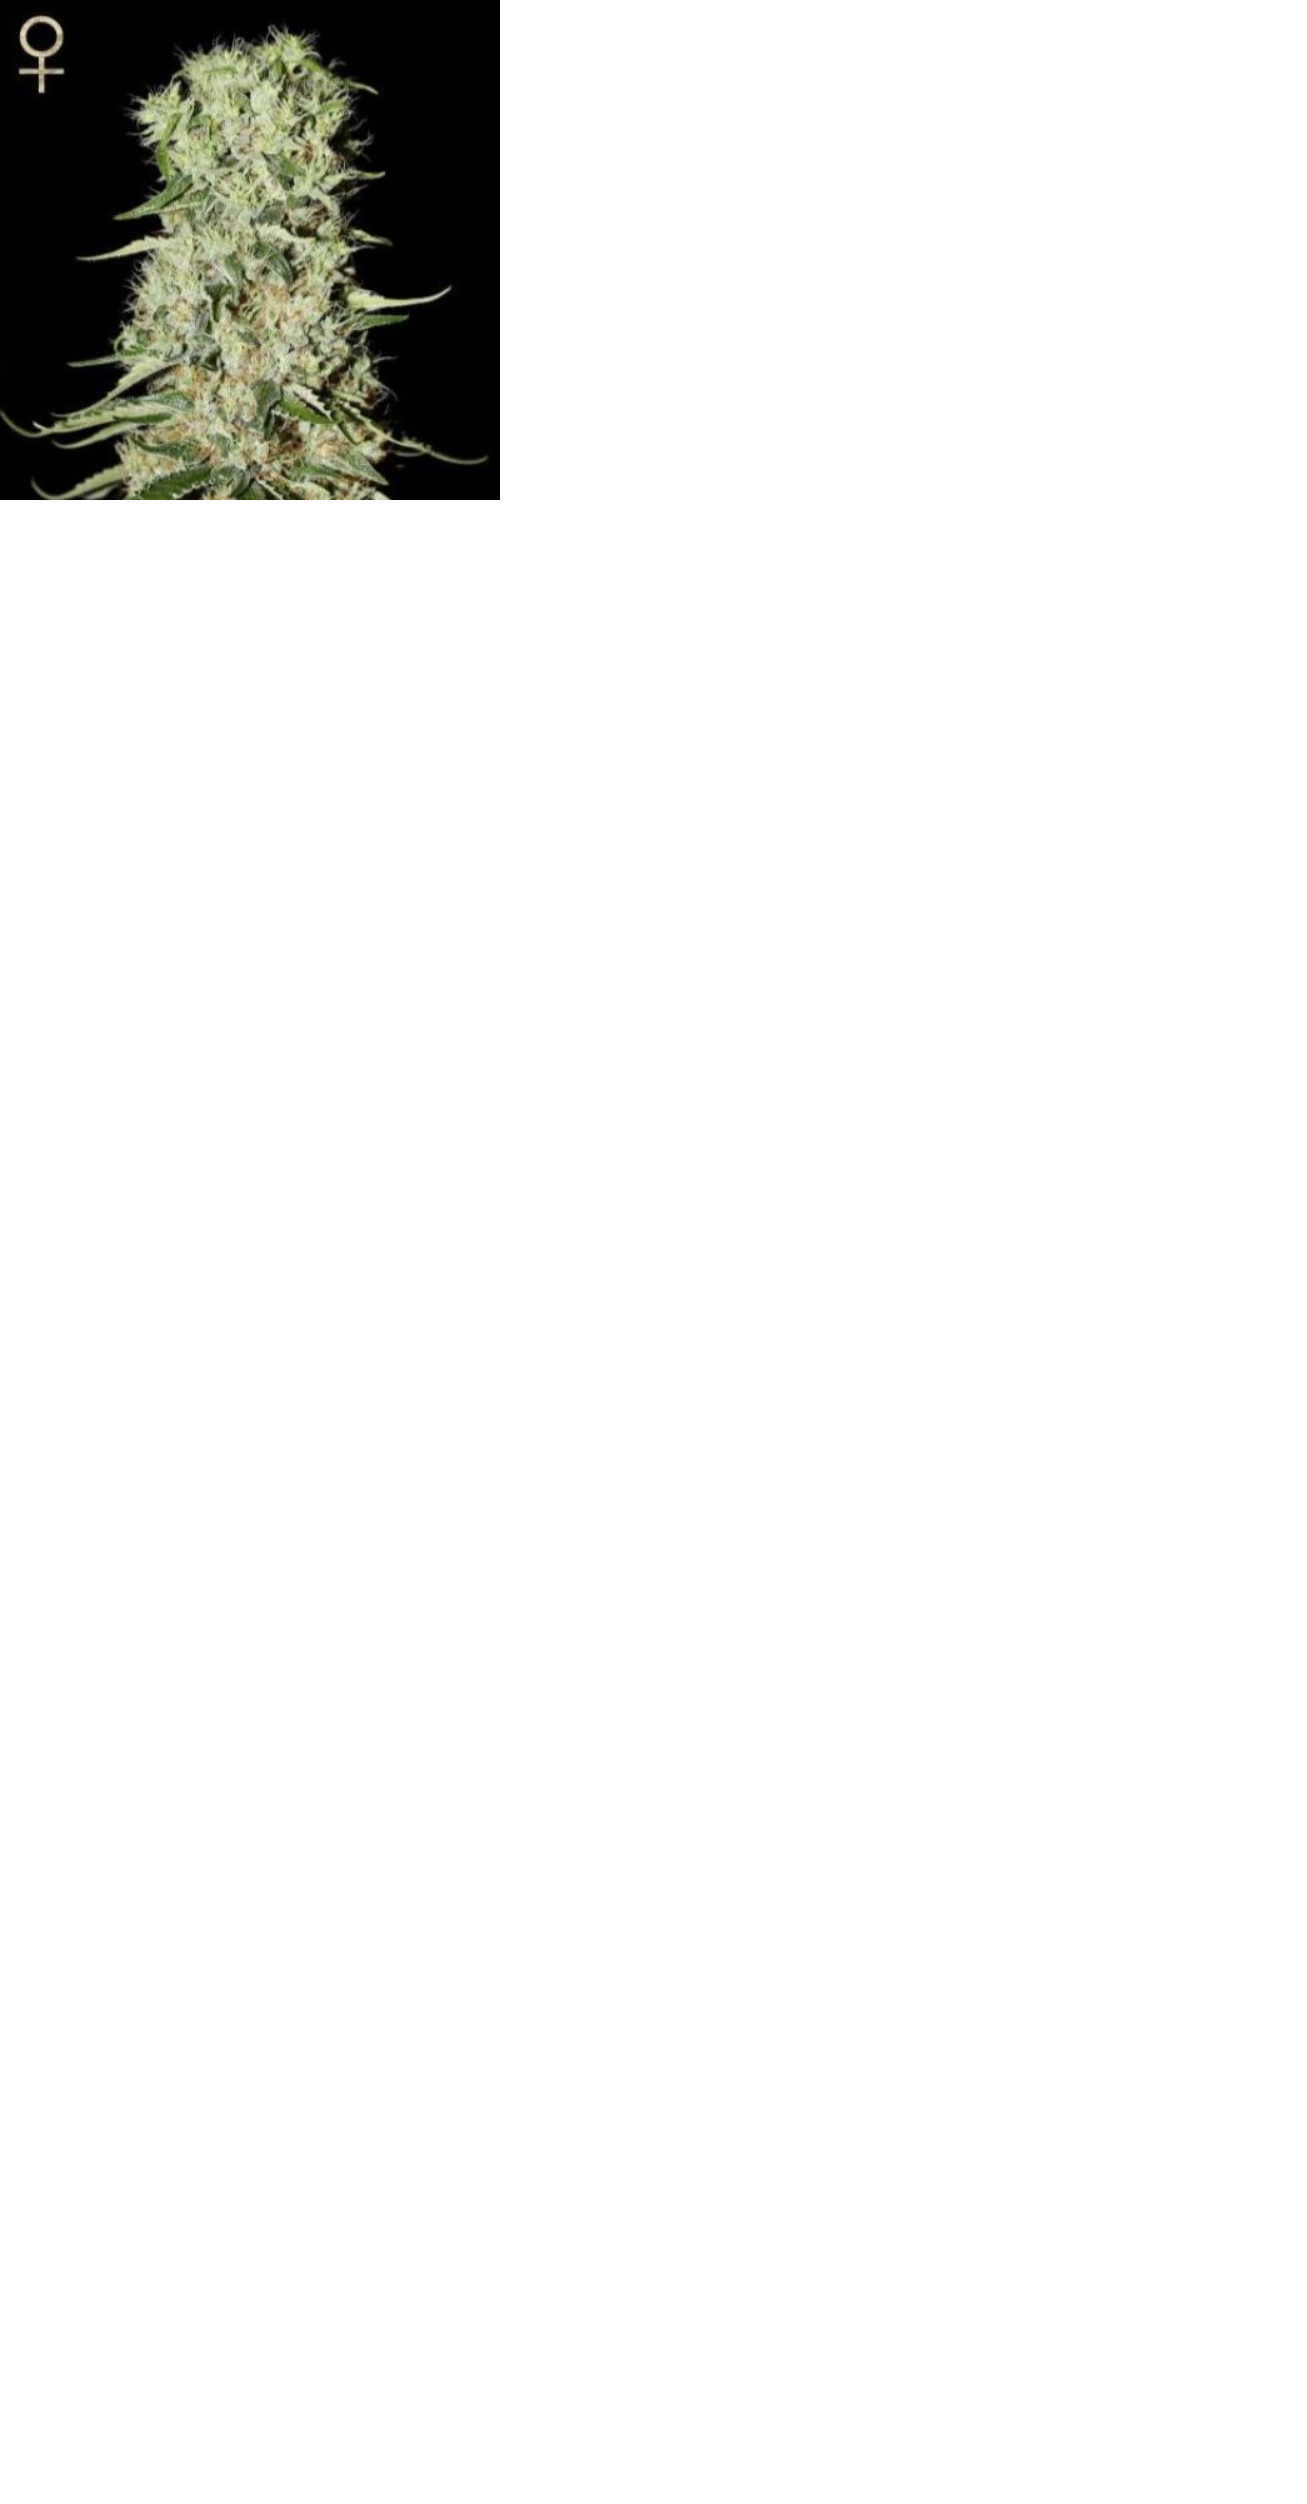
async function draw(canvas) {
  canvas.width = 1307;
  canvas.height = 2504;
  const ctx = canvas.getContext('2d');
  ctx.miterLimit = 4;
  ctx.fontKerning = 'normal';
  function rect(x, y, w, h, color) {
    ctx.fillStyle = color;
    ctx.fillRect(x, y, w, h);
  }
  async function image(src, x, y, w, h) {
    const img = new Image();
    img.src = src;
    await img.decode();
    ctx.drawImage(img, x, y, w, h);
  }

  rect(0, 0, 1307, 2504, '#fff');
  await image('assets/img1.png', 0, 0, 500, 500);
}

draw(document.querySelector('canvas'));
